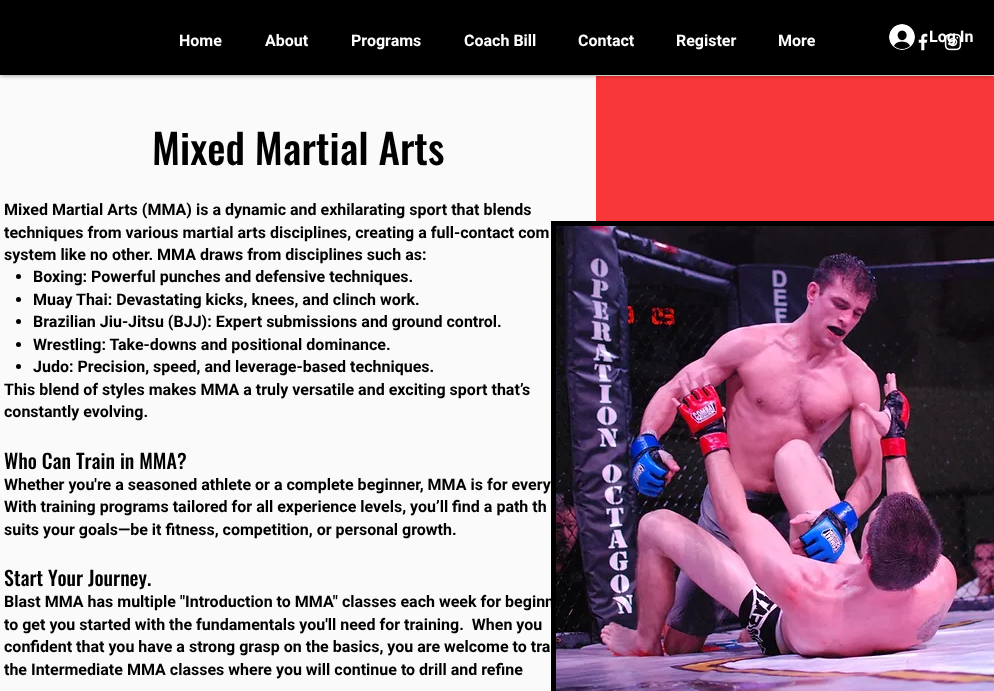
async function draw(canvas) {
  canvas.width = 994;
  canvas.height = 691;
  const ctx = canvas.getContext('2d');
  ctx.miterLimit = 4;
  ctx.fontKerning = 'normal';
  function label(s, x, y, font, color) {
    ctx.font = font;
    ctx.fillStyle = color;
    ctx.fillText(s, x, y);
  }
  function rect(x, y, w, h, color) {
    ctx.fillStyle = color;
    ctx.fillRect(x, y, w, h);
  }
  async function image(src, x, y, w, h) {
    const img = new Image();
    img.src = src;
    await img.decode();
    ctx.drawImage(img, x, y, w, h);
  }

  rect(0, 0, 994, 691, '#fff');
  rect(0, 76, 596, 615, '#fafafa');
  rect(596, 76, 398, 145, '#f7373a');
  ctx.fillStyle = '#00000080';
  ctx.filter = 'blur(2.5px)';
  ctx.beginPath();
  ctx.rect(0, 0, 994, 75);
  ctx.fill();
  ctx.filter = 'none';
  rect(0, 0, 994, 75, '#000');
  await image('assets/img1.png', 889, 24, 26, 26);
  label('Log In', 929, 42, 'bold 16px Roboto', '#fff');
  label('Home', 179, 46, 'bold 16px Roboto', '#fff');
  label('About', 265, 46, 'bold 16px Roboto', '#fff');
  label('Programs', 351, 46, 'bold 16px Roboto', '#fff');
  label('Coach Bill', 464, 46, 'bold 16px Roboto', '#fff');
  label('Contact', 578, 46, 'bold 16px Roboto', '#fff');
  label('Register', 676, 46, 'bold 16px Roboto', '#fff');
  label('More', 778, 46, 'bold 16px Roboto', '#fff');
  await image('assets/img2.png', 918, 33, 10, 18);
  await image('assets/img3.png', 944, 33, 18, 18);
  label('Mixed Martial Arts', 152, 165, '500 41px Oswald', '#000');
  label('Mixed Martial Arts (MMA) is a dynamic and exhilarating sport that blends', 4, 215, 'bold 16px Roboto', '#000');
  label('techniques from various martial arts disciplines, creating a full-contact com', 4, 238, 'bold 16px Roboto', '#000');
  label('system like no other. MMA draws from disciplines such as:', 4, 260, 'bold 16px Roboto', '#000');
  ctx.beginPath();
  ctx.arc(18.5, 276.5, 2.5, 0, 2 * Math.PI);
  ctx.fill();
  label('Boxing: Powerful punches and defensive techniques.', 33, 282, 'bold 16px Roboto', '#000');
  ctx.beginPath();
  ctx.arc(18.5, 299.5, 2.5, 0, 2 * Math.PI);
  ctx.fill();
  label('Muay Thai: Devastating kicks, knees, and clinch work.', 33, 305, 'bold 16px Roboto', '#000');
  ctx.beginPath();
  ctx.arc(18.5, 321.5, 2.5, 0, 2 * Math.PI);
  ctx.fill();
  label('Brazilian Jiu-Jitsu (BJJ): Expert submissions and ground control.', 33, 327, 'bold 16px Roboto', '#000');
  ctx.beginPath();
  ctx.arc(18.5, 344.5, 2.5, 0, 2 * Math.PI);
  ctx.fill();
  label('Wrestling: Take-downs and positional dominance.', 33, 350, 'bold 16px Roboto', '#000');
  ctx.beginPath();
  ctx.arc(18.5, 366.5, 2.5, 0, 2 * Math.PI);
  ctx.fill();
  label('Judo: Precision, speed, and leverage-based techniques.', 33, 372, 'bold 16px Roboto', '#000');
  label('This blend of styles makes MMA a truly versatile and exciting sport that’s', 4, 395, 'bold 16px Roboto', '#000');
  label('constantly evolving.', 4, 417, 'bold 16px Roboto', '#000');
  label('Who Can Train in MMA?', 4, 469, '500 20px Oswald', '#000');
  label('Whether you\'re a seasoned athlete or a complete beginner, MMA is for every', 4, 490, 'bold 16px Roboto', '#000');
  label('With training programs tailored for all experience levels, you’ll find a path th', 4, 512, 'bold 16px Roboto', '#000');
  label('suits your goals—be it fitness, competition, or personal growth.', 4, 535, 'bold 16px Roboto', '#000');
  label('Start Your Journey.', 4, 586, '500 20px Oswald', '#000');
  label('Blast MMA has multiple "Introduction to MMA" classes each week for beginn', 4, 607, 'bold 16px Roboto', '#000');
  label('to get you started with the fundamentals you\'ll need for training.  When you', 4, 630, 'bold 16px Roboto', '#000');
  label('confident that you have a strong grasp on the basics, you are welcome to tra', 4, 652, 'bold 16px Roboto', '#000');
  label('the Intermediate MMA classes where you will continue to drill and refine', 4, 675, 'bold 16px Roboto', '#000');
  rect(551, 221, 443, 470, '#000');
  await image('assets/img4.png', 556, 226, 438, 465);
}

draw(document.querySelector('canvas'));
